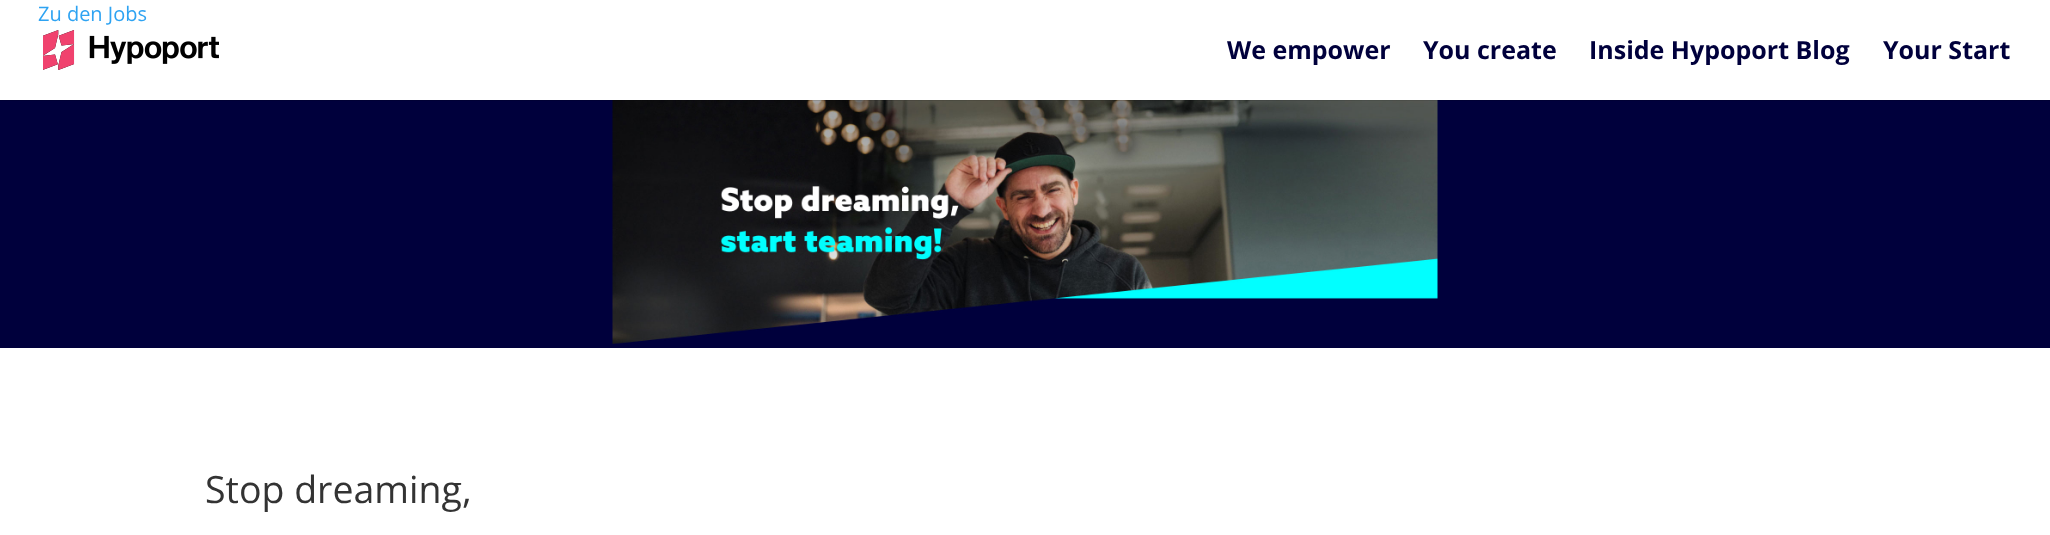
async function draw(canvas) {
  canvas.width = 2050;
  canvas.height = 535;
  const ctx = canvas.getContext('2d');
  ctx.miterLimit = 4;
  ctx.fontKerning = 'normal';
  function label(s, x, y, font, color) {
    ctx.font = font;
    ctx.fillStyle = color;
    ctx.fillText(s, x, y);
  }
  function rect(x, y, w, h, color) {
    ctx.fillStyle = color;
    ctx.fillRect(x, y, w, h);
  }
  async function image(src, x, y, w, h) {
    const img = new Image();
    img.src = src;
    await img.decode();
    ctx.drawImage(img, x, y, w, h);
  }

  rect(0, 0, 2050, 535, '#fff');
  rect(0, 100, 2050, 248, '#00003c');
  await image('assets/img2.png', 612, 100, 826, 244);
  rect(0, 100, 2050, 1, '#0000001a');
  label('Zu den Jobs', 38, 21, '20px Open Sans', '#2ea3f2');
  await image('assets/img1.png', 43, 30, 176, 40);
  label('We empower', 1227, 59, 'bold 25px Open Sans', '#00003c');
  label('You create', 1423, 59, 'bold 25px Open Sans', '#00003c');
  label('Inside Hypoport Blog', 1589, 59, 'bold 25px Open Sans', '#00003c');
  label('Your Start', 1883, 59, 'bold 25px Open Sans', '#00003c');
  label('Stop dreaming,', 205, 503, '37.5px Open Sans', '#333');
}

draw(document.querySelector('canvas'));
